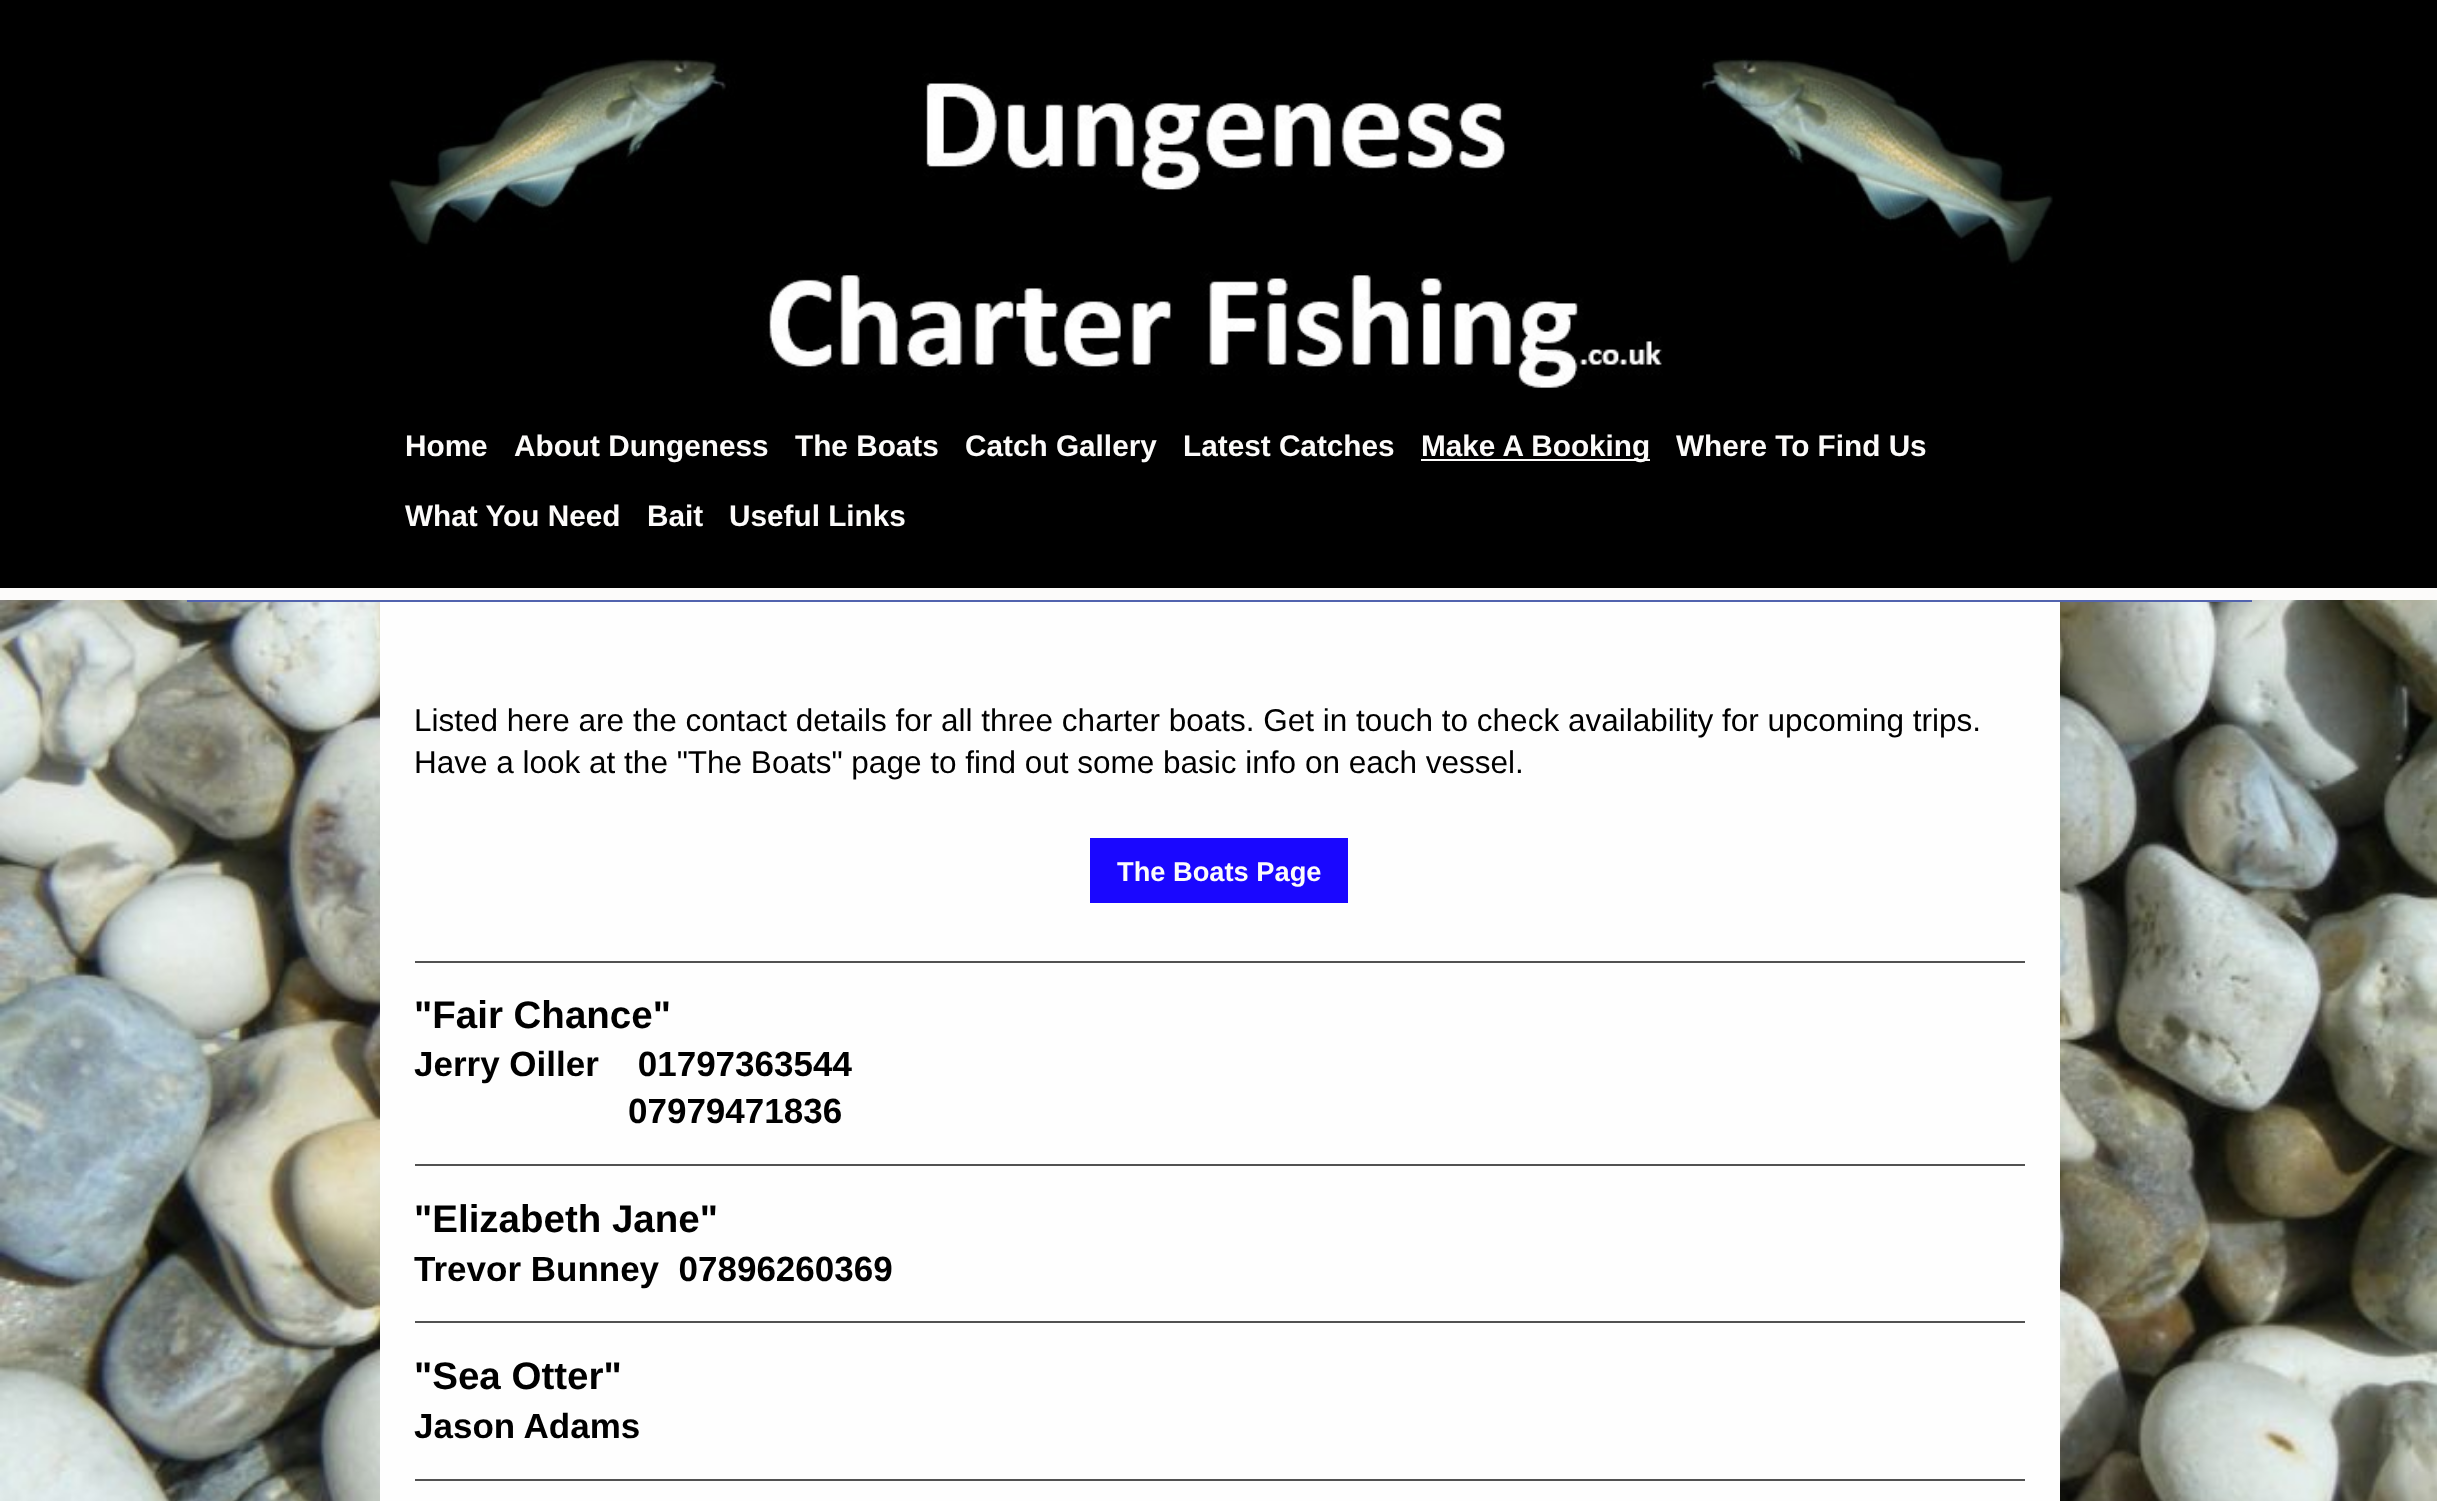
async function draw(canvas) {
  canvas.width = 2437;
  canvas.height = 1501;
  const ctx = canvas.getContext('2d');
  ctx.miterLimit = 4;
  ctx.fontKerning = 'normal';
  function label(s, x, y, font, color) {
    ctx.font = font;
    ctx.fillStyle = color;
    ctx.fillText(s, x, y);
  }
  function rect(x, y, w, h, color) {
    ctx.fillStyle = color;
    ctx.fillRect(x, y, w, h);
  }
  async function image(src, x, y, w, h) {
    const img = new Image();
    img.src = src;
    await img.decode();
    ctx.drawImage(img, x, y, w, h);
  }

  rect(0, 0, 2437, 1501, '#fff');
  await image('assets/img1.png', 0, 600, 2437, 901);
  rect(0, 0, 2437, 588, '#000');
  rect(0, 588, 2437, 12, '#fcfbfa');
  await image('assets/img2.png', 389, 58, 1664, 331);
  label('Home', 405, 456, 'bold 29.75px Liberation Sans', '#fcfbfa');
  label('About Dungeness', 514, 456, 'bold 29.75px Liberation Sans', '#fcfbfa');
  label('The Boats', 795, 456, 'bold 29.75px Liberation Sans', '#fcfbfa');
  label('Catch Gallery', 965, 456, 'bold 29.75px Liberation Sans', '#fcfbfa');
  label('Latest Catches', 1183, 456, 'bold 29.75px Liberation Sans', '#fcfbfa');
  rect(1421, 459, 229, 2, '#fcfbfa');
  label('Make A Booking', 1421, 456, 'bold 29.75px Liberation Sans', '#fcfbfa');
  label('Where To Find Us', 1676, 456, 'bold 29.75px Liberation Sans', '#fcfbfa');
  label('What You Need', 405, 526, 'bold 29.75px Liberation Sans', '#fcfbfa');
  label('Bait', 647, 526, 'bold 29.75px Liberation Sans', '#fcfbfa');
  label('Useful Links', 729, 526, 'bold 29.75px Liberation Sans', '#fcfbfa');
  rect(187, 600, 2065, 2, '#5263ae');
  rect(380, 602, 1680, 899, '#fefefe');
  label('Listed here are the contact details for all three charter boats. Get in touch to check availability for upcoming trips.', 414, 731, '31.5px Liberation Sans', '#000');
  label('Have a look at the "The Boats" page to find out some basic info on each vessel.', 414, 773, '31.5px Liberation Sans', '#000');
  rect(1090, 838, 258, 65, '#1a07ff');
  label('The Boats Page', 1117, 881, 'bold 27.25px Liberation Sans', '#fcfbfa');
  rect(415, 961, 1610, 2, '#525252');
  label('"Fair Chance"', 414, 1028, 'bold 38.5px Liberation Sans', '#000');
  label('Jerry Oiller    01797363544', 414, 1076, 'bold 35px Liberation Sans', '#000');
  label('07979471836', 628, 1123, 'bold 35px Liberation Sans', '#000');
  rect(415, 1164, 1610, 2, '#525252');
  label('"Elizabeth Jane"', 414, 1232, 'bold 38.5px Liberation Sans', '#000');
  label('Trevor Bunney  07896260369', 414, 1281, 'bold 35px Liberation Sans', '#000');
  rect(415, 1321, 1610, 2, '#525252');
  label('"Sea Otter"', 414, 1389, 'bold 38.5px Liberation Sans', '#000');
  label('Jason Adams', 414, 1438, 'bold 35px Liberation Sans', '#000');
  rect(415, 1479, 1610, 2, '#525252');
}

draw(document.querySelector('canvas'));
